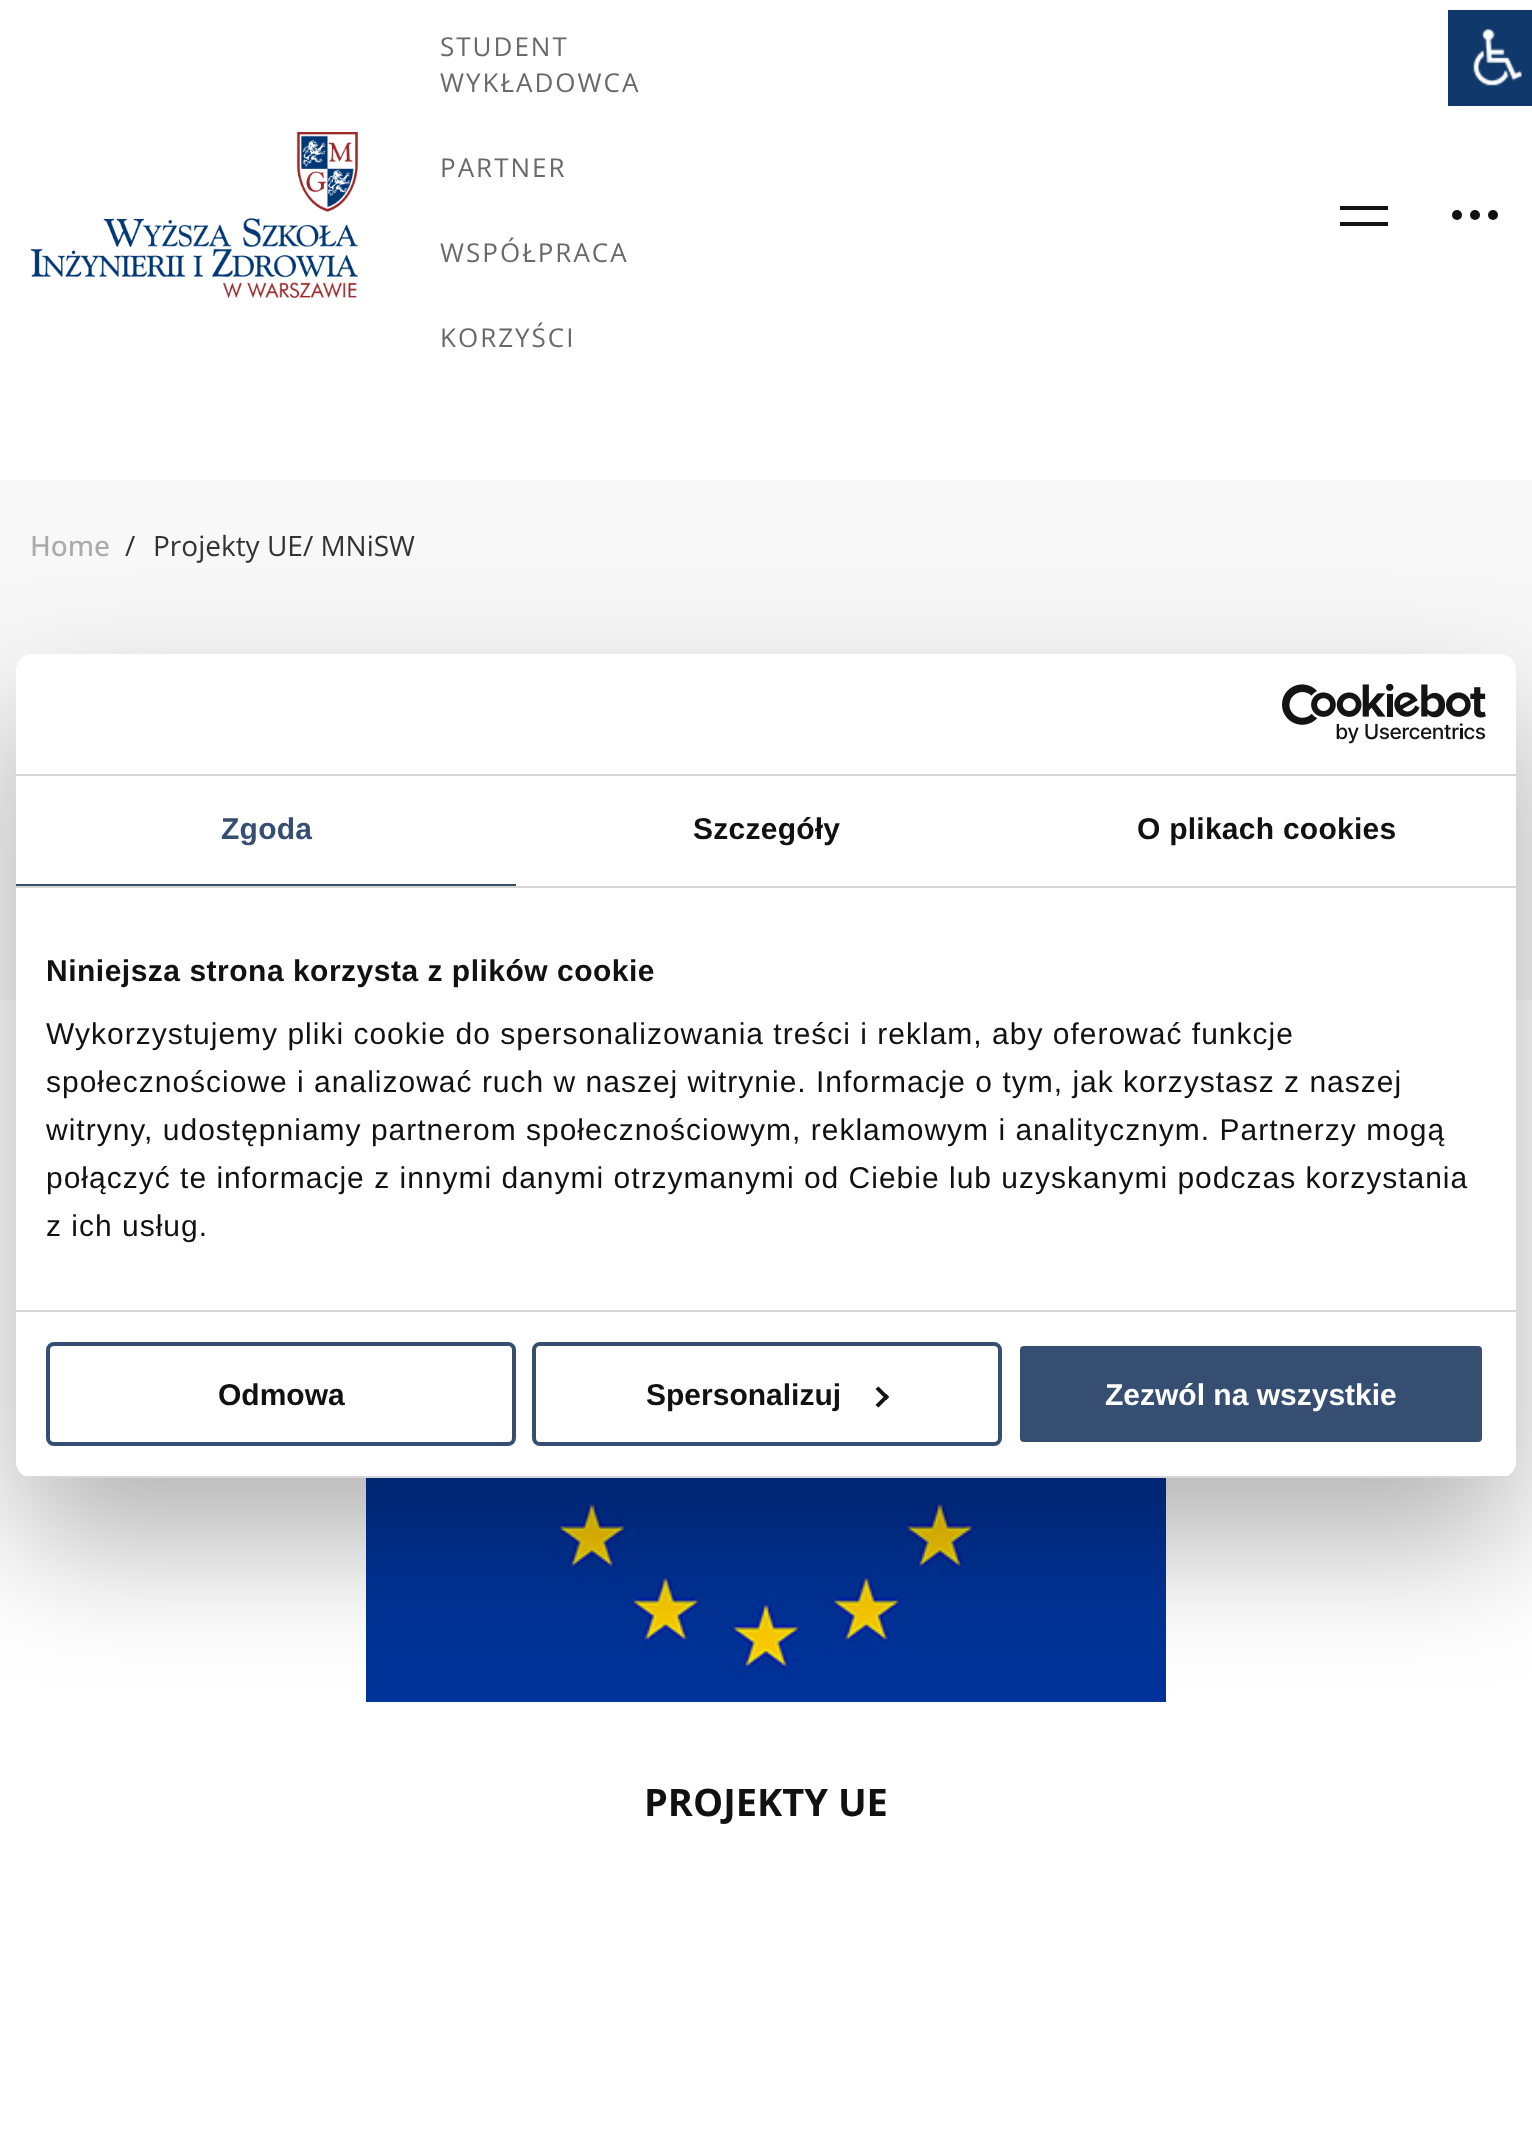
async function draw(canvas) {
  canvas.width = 1532;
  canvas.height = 2129;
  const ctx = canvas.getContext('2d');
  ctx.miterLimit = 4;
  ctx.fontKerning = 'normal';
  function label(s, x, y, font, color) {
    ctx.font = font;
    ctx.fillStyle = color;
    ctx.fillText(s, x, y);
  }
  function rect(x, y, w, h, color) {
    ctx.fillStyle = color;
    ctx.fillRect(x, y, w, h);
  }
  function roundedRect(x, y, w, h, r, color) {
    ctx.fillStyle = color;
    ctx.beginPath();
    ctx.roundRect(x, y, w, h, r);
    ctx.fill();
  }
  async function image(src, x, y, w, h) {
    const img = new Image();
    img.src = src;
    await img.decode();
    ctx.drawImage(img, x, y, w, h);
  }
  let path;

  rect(0, 0, 1532, 2129, '#fff');
  await image('assets/img1.png', 30, 132, 328, 166);
  ctx.letterSpacing = '2px';
  label('STUDENT', 440, 56, '26px Open Sans', '#696969');
  label('WYKŁADOWCA', 440, 92, '26px Open Sans', '#696969');
  label('PARTNER', 440, 177, '26px Open Sans', '#696969');
  label('WSPÓŁPRACA', 440, 262, '26px Open Sans', '#696969');
  label('KORZYŚCI', 440, 347, '26px Open Sans', '#696969');
  rect(1340, 206, 48, 4, '#131313');
  rect(1340, 222, 48, 4, '#131313');
  ctx.fillStyle = '#111';
  ctx.beginPath();
  ctx.arc(1457, 215, 5, 0, 2 * Math.PI);
  ctx.fill();
  ctx.beginPath();
  ctx.arc(1475, 215, 5, 0, 2 * Math.PI);
  ctx.fill();
  ctx.beginPath();
  ctx.arc(1493, 215, 5, 0, 2 * Math.PI);
  ctx.fill();
  rect(0, 480, 1532, 520, '#f8f8f8');
  ctx.letterSpacing = '0px';
  label('Home', 30, 556, '500 28px Open Sans', '#ababab');
  label('/', 125, 556, '28px Open Sans', '#333');
  label('Projekty UE/ MNiSW', 153, 556, '28px Open Sans', '#333');
  await image('assets/img2.png', 366, 1478, 800, 224);
  label('PROJEKTY UE', 644, 1816, 'bold 38px Open Sans', '#111');
  ctx.strokeStyle = '#10386b';
  ctx.lineWidth = 10;
  ctx.strokeRect(1453, 15, 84, 86);
  await image('assets/img3.png', 1458, 20, 74, 76);
  ctx.fillStyle = '#0000004d';
  ctx.filter = 'blur(68px)';
  ctx.beginPath();
  ctx.roundRect(16, 718, 1500, 824, 16);
  ctx.fill();
  ctx.filter = 'none';
  roundedRect(16, 654, 1500, 824, 16, '#fff');
  rect(16, 774, 1500, 2, '#d6d6d6');
  await image('assets/img4.png', 1282, 684, 204, 60);
  rect(16, 886, 1500, 2, '#d6d6d6');
  rect(16, 884, 500, 2, '#364e72');
  ctx.letterSpacing = '0.25px';
  label('Zgoda', 221, 839, 'bold 30px Liberation Sans', '#364e72');
  label('Szczegóły', 693, 839, 'bold 30px Liberation Sans', '#111');
  label('O plikach cookies', 1137, 839, 'bold 30px Liberation Sans', '#111');
  rect(16, 1310, 1500, 2, '#d6d6d6');
  ctx.letterSpacing = '0.5px';
  label('Niniejsza strona korzysta z plików cookie', 46, 981, 'bold 30px Liberation Sans', '#111');
  ctx.letterSpacing = '1px';
  label('Wykorzystujemy pliki cookie do spersonalizowania treści i reklam, aby oferować funkcje', 46, 1044, '30px Liberation Sans', '#111');
  label('społecznościowe i analizować ruch w naszej witrynie. Informacje o tym, jak korzystasz z naszej', 46, 1092, '30px Liberation Sans', '#111');
  label('witryny, udostępniamy partnerom społecznościowym, reklamowym i analitycznym. Partnerzy mogą', 46, 1140, '30px Liberation Sans', '#111');
  label('połączyć te informacje z innymi danymi otrzymanymi od Ciebie lub uzyskanymi podczas korzystania', 46, 1188, '30px Liberation Sans', '#111');
  label('z ich usług.', 46, 1236, '30px Liberation Sans', '#111');
  ctx.save();
  ctx.beginPath();
  ctx.roundRect(16, 654, 1500, 824, 16);
  ctx.clip();
  rect(16, 1476, 1500, 2, '#d6d6d6');
  ctx.restore();
  ctx.beginPath();
  ctx.roundRect(48, 1344, 466, 100, 6);
  ctx.strokeStyle = '#364e72';
  ctx.lineWidth = 4;
  ctx.stroke();
  ctx.letterSpacing = '0px';
  label('Odmowa', 218, 1405, 'bold 30px Liberation Sans', '#111');
  ctx.beginPath();
  ctx.roundRect(534, 1344, 466, 100, 6);
  ctx.stroke();
  label('Spersonalizuj', 646, 1405, 'bold 30px Liberation Sans', '#111');
  ctx.fillStyle = '#141414';
  path = new Path2D('M878.5 1386.5L889 1397L886.5 1400L875.5 1389Z');
  ctx.fill(path);
  path = new Path2D('M886.5 1394L889 1397L878.5 1407.5L875.5 1405Z');
  ctx.fill(path);
  ctx.fillStyle = '#364e72';
  ctx.beginPath();
  ctx.roundRect(1018, 1344, 466, 100, 6);
  ctx.fill();
  ctx.strokeStyle = '#fff';
  ctx.stroke();
  label('Zezwól na wszystkie', 1105, 1405, 'bold 30px Liberation Sans', '#fff');
}

draw(document.querySelector('canvas'));
